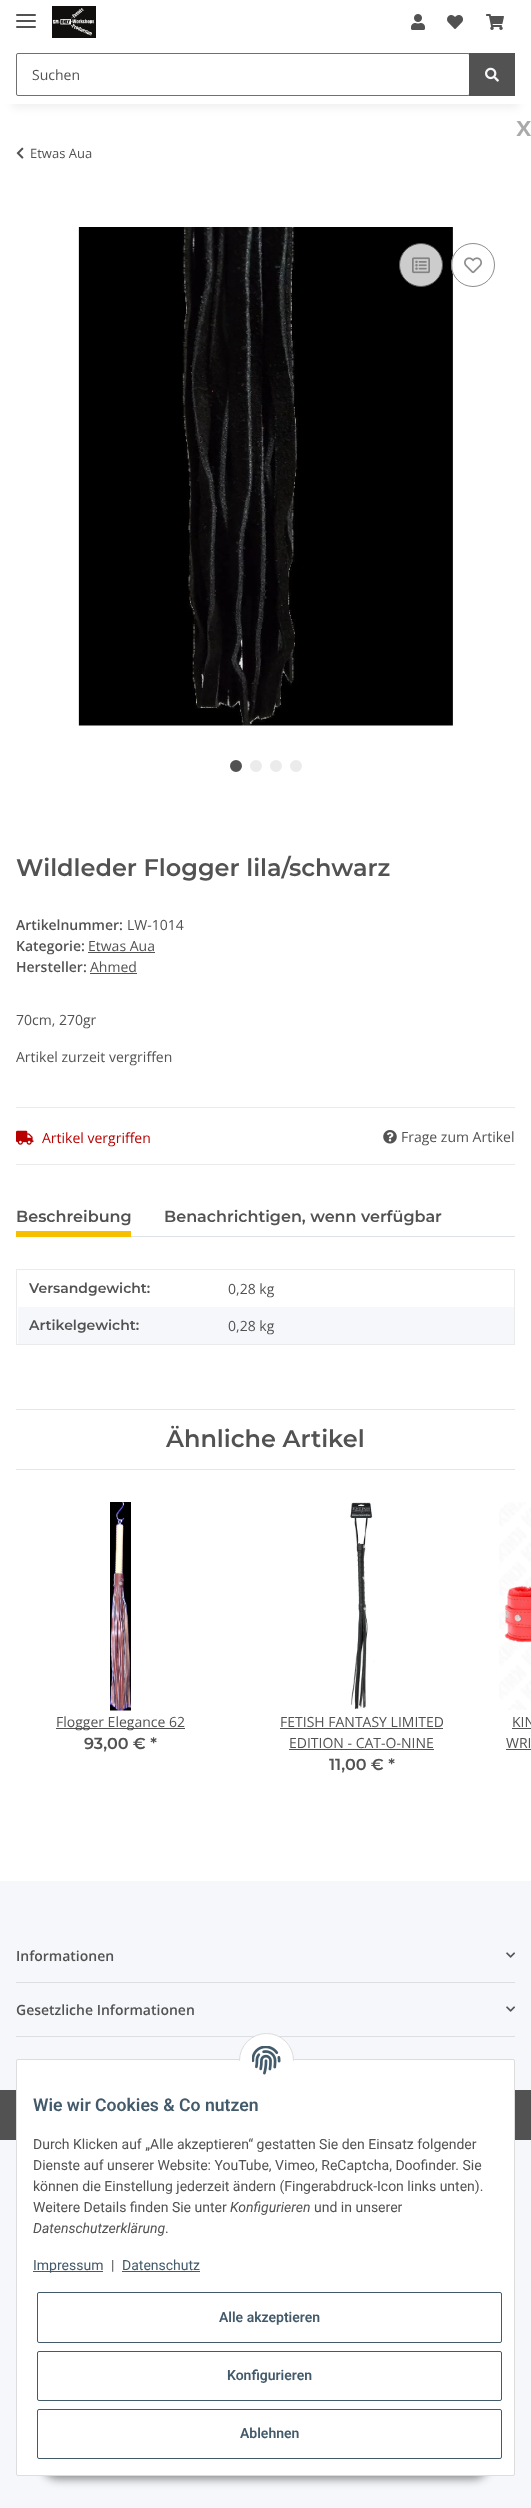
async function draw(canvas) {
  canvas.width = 531;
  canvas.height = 2508;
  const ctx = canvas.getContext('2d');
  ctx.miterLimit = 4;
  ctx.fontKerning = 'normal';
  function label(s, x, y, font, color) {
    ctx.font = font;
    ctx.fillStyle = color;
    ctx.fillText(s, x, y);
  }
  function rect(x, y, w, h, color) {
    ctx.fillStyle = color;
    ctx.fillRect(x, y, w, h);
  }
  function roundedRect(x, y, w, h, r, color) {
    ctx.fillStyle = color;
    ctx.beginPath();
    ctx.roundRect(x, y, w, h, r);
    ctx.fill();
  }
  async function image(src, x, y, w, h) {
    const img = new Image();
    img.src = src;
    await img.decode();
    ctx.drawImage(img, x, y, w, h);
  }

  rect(0, 0, 531, 2508, '#f5f7fa');
  rect(0, 104, 531, 1777, '#fff');
  ctx.fillStyle = '#0000000f';
  ctx.filter = 'blur(4.5px)';
  ctx.beginPath();
  ctx.rect(12, 28, 507, 80);
  ctx.fill();
  ctx.filter = 'none';
  rect(0, 0, 531, 104, '#fff');
  roundedRect(16, 20, 20, 2, 1, '#525252');
  roundedRect(16, 14, 20, 2, 1, '#525252');
  roundedRect(16, 26, 20, 2, 1, '#525252');
  await image('assets/img1.png', 52, 6, 44, 32);
  await image('assets/img2.png', 411, 14, 14, 16);
  await image('assets/img3.png', 447, 15, 16, 14);
  await image('assets/img4.png', 486, 14, 18, 16);
  ctx.beginPath();
  ctx.roundRect(16.5, 53.5, 453, 42, 1.5);
  ctx.strokeStyle = '#707070';
  ctx.stroke();
  label('Suchen', 32, 80, '14px Open Sans', '#525252');
  rect(469, 53, 46, 43, '#525252');
  await image('assets/img5.png', 485, 67, 14, 15);
  label('x', 516, 136, '600 28px Open Sans', '#aaa');
  await image('assets/img6.png', 16, 147, 8, 12);
  label('Etwas Aua', 30, 158, '13px Open Sans', '#525252');
  await image('assets/img7.png', 78, 227, 375, 499);
  ctx.beginPath();
  ctx.arc(236, 766, 5, 0, 2 * Math.PI);
  ctx.fill();
  ctx.strokeStyle = '#525252';
  ctx.lineWidth = 2;
  ctx.stroke();
  ctx.fillStyle = '#ebebeb';
  ctx.beginPath();
  ctx.arc(256, 766, 5, 0, 2 * Math.PI);
  ctx.fill();
  ctx.strokeStyle = '#ebebeb';
  ctx.stroke();
  ctx.beginPath();
  ctx.arc(276, 766, 5, 0, 2 * Math.PI);
  ctx.fill();
  ctx.stroke();
  ctx.beginPath();
  ctx.arc(296, 766, 5, 0, 2 * Math.PI);
  ctx.fill();
  ctx.stroke();
  ctx.fillStyle = '#ccc';
  ctx.beginPath();
  ctx.arc(421, 265, 21.5, 0, 2 * Math.PI);
  ctx.fill();
  ctx.strokeStyle = '#5a5a5a';
  ctx.lineWidth = 1;
  ctx.stroke();
  await image('assets/img8.png', 412, 257, 18, 17);
  ctx.fillStyle = '#ffffffcc';
  ctx.beginPath();
  ctx.arc(473, 265, 22, 0, 2 * Math.PI);
  ctx.fill();
  ctx.beginPath();
  ctx.arc(473, 265, 21.5, 0, 2 * Math.PI);
  ctx.strokeStyle = '#707070cc';
  ctx.stroke();
  await image('assets/img9.png', 464, 257, 18, 17);
  label('Wildleder Flogger lila/schwarz', 16, 876, '600 24px Montserrat', '#525252');
  label('Artikelnummer:', 16, 930, '600 14px Open Sans', '#525252');
  label('LW-1014', 127, 930, '14px Open Sans', '#525252');
  label('Kategorie:', 16, 951, '600 14px Open Sans', '#525252');
  label('Etwas Aua', 88, 951, '14px Open Sans', '#525252');
  rect(88, 952, 67, 1, '#525252');
  label('Hersteller:', 16, 972, '600 14px Open Sans', '#525252');
  label('Ahmed', 90, 972, '14px Open Sans', '#525252');
  rect(90, 973, 47, 1, '#525252');
  label('70cm, 270gr', 16, 1025, '14px Open Sans', '#525252');
  label('Artikel zurzeit vergriffen', 16, 1062, '14px Open Sans', '#525252');
  rect(16, 1107, 499, 1, '#ebebeb');
  rect(16, 1164, 499, 1, '#ebebeb');
  await image('assets/img10.png', 16, 1130, 18, 15);
  label('Artikel vergriffen', 42, 1143, '14px Open Sans', '#b90000');
  await image('assets/img11.png', 383, 1130, 14, 14);
  label('Frage zum Artikel', 401, 1142, '14px Open Sans', '#525252');
  rect(131, 1236, 384, 1, '#dee2e6');
  label('Beschreibung', 16, 1222, '600 16px Montserrat', '#525252');
  rect(16, 1231, 115, 6, '#f8bf00');
  label('Benachrichtigen, wenn verfügbar', 164, 1222, '600 16px Montserrat', '#525252');
  rect(16, 1269, 499, 1, '#ebebeb');
  rect(514, 1307, 1, 38, '#ebebeb');
  rect(514, 1269, 1, 39, '#ebebeb');
  rect(16, 1344, 499, 1, '#ebebeb');
  rect(16, 1307, 1, 38, '#ebebeb');
  rect(16, 1269, 1, 39, '#ebebeb');
  label('Versandgewicht:', 29, 1293, '600 14px Montserrat', '#525252');
  label('0,28 kg', 228, 1294, '14px Open Sans', '#525252');
  rect(18, 1307, 496, 37, '#f5f7fa');
  label('Artikelgewicht:', 29, 1330, '600 14px Montserrat', '#525252');
  label('0,28 kg', 228, 1331, '14px Open Sans', '#525252');
  rect(16, 1409, 499, 1, '#e6e6e6');
  rect(16, 1469, 499, 1, '#e6e6e6');
  label('Ähnliche Artikel', 166, 1447, '600 24px Montserrat', '#525252');
  await image('assets/img12.png', 110, 1502, 21, 209);
  rect(56, 1728, 129, 1, '#525252');
  label('Flogger Elegance 62', 56, 1727, '14px Open Sans', '#525252');
  label('93,00 € *', 84, 1749, '600 16px Montserrat', '#525252');
  await image('assets/img13.png', 350, 1502, 25, 208);
  label('FETISH FANTASY LIMITED', 280, 1727, '14px Open Sans', '#525252');
  rect(280, 1728, 163, 1, '#525252');
  label('EDITION - CAT-O-NINE', 289, 1748, '14px Open Sans', '#525252');
  rect(289, 1749, 145, 1, '#525252');
  label('11,00 € *', 329, 1770, '600 16px Montserrat', '#525252');
  await image('assets/img14.png', 499, 1502, 32, 208);
  label('KIN', 512, 1727, '14px Open Sans', '#525252');
  rect(512, 1728, 19, 1, '#525252');
  label('WRI', 506, 1748, '14px Open Sans', '#525252');
  rect(506, 1749, 25, 1, '#525252');
  label('Informationen', 16, 1961, '600 14px Open Sans', '#525252');
  await image('assets/img15.png', 506, 1952, 9, 6);
  rect(16, 1982, 499, 1, '#dddee1');
  label('Gesetzliche Informationen', 16, 2015, '600 14px Open Sans', '#525252');
  await image('assets/img15.png', 506, 2006, 9, 6);
  rect(16, 2036, 499, 1, '#dddee1');
  rect(0, 2090, 531, 50, '#525252');
  ctx.fillStyle = '#00000073';
  ctx.filter = 'blur(5px)';
  ctx.beginPath();
  ctx.roundRect(42, 2447, 447, 32, 16);
  ctx.fill();
  ctx.filter = 'none';
  ctx.fillStyle = '#fff';
  ctx.beginPath();
  ctx.roundRect(16.5, 2059.5, 498, 416, 1.5);
  ctx.fill();
  ctx.strokeStyle = '#ddd';
  ctx.stroke();
  ctx.beginPath();
  ctx.arc(266.5, 2060.5, 27, 0, 2 * Math.PI);
  ctx.fill();
  ctx.stroke();
  rect(239, 2061, 55, 27, '#fff');
  await image('assets/img16.png', 252, 2046, 29, 29);
  label('Wie wir Cookies & Co nutzen', 33, 2111, '600 17.6px Roboto', '#435a6b');
  label('Durch Klicken auf „Alle akzeptieren“ gestatten Sie den Einsatz folgender', 33, 2149, '14px Roboto', '#525252');
  label('Dienste auf unserer Website: YouTube, Vimeo, ReCaptcha, Doofinder. Sie', 33, 2170, '14px Roboto', '#525252');
  label('können die Einstellung jederzeit ändern (Fingerabdruck-Icon links unten).', 33, 2191, '14px Roboto', '#525252');
  label('Weitere Details finden Sie unter', 33, 2212, '14px Roboto', '#525252');
  label('Konfigurieren', 230, 2212, 'italic 14px Roboto', '#525252');
  label('und in unserer', 314, 2212, '14px Roboto', '#525252');
  label('Datenschutzerklärung', 33, 2233, 'italic 14px Roboto', '#525252');
  label('.', 165, 2233, '14px Roboto', '#525252');
  rect(33, 2271, 70, 1, '#435a6b');
  label('Impressum', 33, 2270, '14px Roboto', '#435a6b');
  label('|', 111, 2270, '14px Roboto', '#525252');
  label('Datenschutz', 122, 2270, '14px Roboto', '#435a6b');
  rect(122, 2271, 78, 1, '#435a6b');
  ctx.beginPath();
  ctx.roundRect(37.5, 2292.5, 464, 50, 1.5);
  ctx.strokeStyle = '#435a6b';
  ctx.stroke();
  label('Alle akzeptieren', 219, 2322, '600 14px Roboto', '#435a6b');
  ctx.beginPath();
  ctx.roundRect(37.5, 2351.5, 464, 49, 1.5);
  ctx.stroke();
  label('Konfigurieren', 227, 2380, '600 14px Roboto', '#435a6b');
  ctx.beginPath();
  ctx.roundRect(37.5, 2409.5, 464, 49, 1.5);
  ctx.stroke();
  label('Ablehnen', 240, 2438, '600 14px Roboto', '#435a6b');
}

draw(document.querySelector('canvas'));
